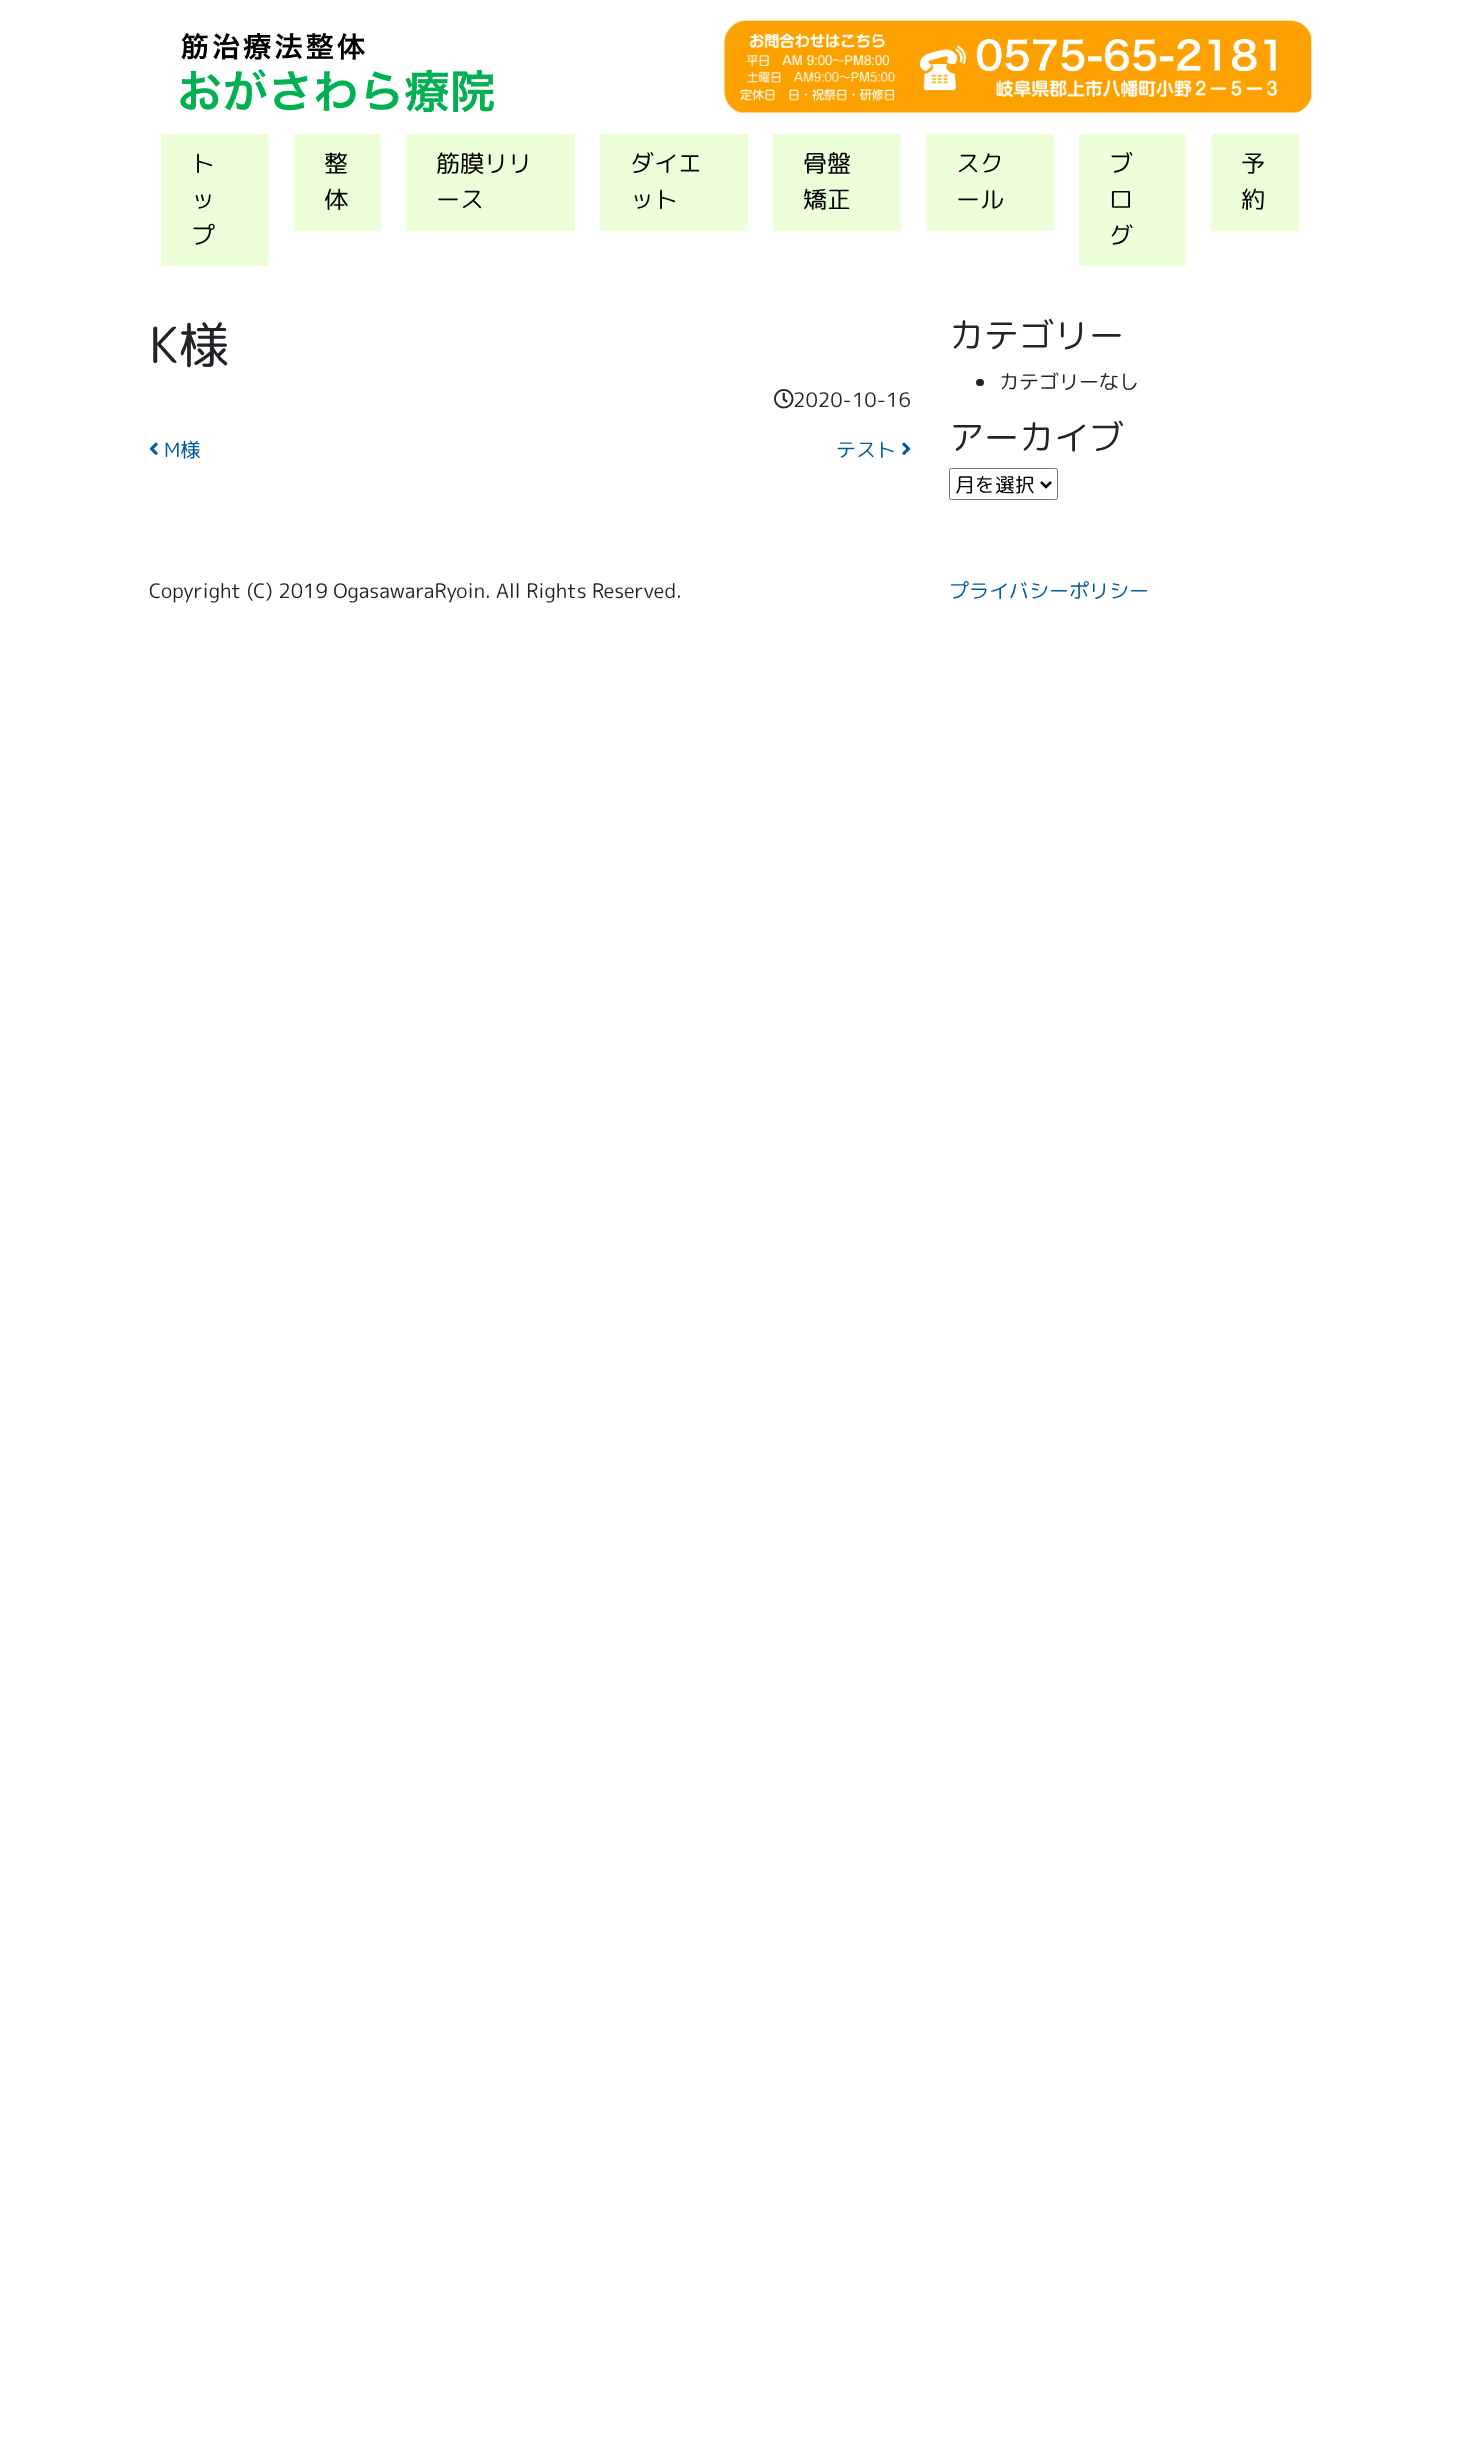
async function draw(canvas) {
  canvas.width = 1459;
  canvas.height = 2453;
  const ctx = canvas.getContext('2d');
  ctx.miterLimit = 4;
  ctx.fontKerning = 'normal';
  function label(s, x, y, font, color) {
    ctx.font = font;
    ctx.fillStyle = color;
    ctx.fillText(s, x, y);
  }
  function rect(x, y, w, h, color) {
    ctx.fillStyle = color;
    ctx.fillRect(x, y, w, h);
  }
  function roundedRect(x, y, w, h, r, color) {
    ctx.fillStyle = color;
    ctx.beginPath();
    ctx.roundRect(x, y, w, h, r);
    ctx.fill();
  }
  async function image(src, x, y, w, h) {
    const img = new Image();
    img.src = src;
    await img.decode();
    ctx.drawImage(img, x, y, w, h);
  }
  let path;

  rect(0, 0, 1459, 2453, '#fff');
  await image('assets/img1.png', 180, 33, 314, 80);
  await image('assets/img2.png', 723, 20, 589, 93);
  rect(161, 134, 108, 132, '#edffd9');
  label('ト', 191, 172, '24px "Rounded Mplus 1c"', '#000');
  label('ッ', 191, 208, '24px "Rounded Mplus 1c"', '#000');
  label('プ', 191, 244, '24px "Rounded Mplus 1c"', '#000');
  rect(294, 134, 87, 97, '#edffd9');
  label('整', 324, 172, '24px "Rounded Mplus 1c"', '#000');
  label('体', 324, 208, '24px "Rounded Mplus 1c"', '#000');
  rect(406, 134, 169, 97, '#edffd9');
  label('筋膜リリ', 436, 172, '24px "Rounded Mplus 1c"', '#000');
  label('ース', 436, 208, '24px "Rounded Mplus 1c"', '#000');
  rect(600, 134, 148, 97, '#edffd9');
  label('ダイエ', 630, 172, '24px "Rounded Mplus 1c"', '#000');
  label('ット', 630, 208, '24px "Rounded Mplus 1c"', '#000');
  rect(773, 134, 128, 97, '#edffd9');
  label('骨盤', 803, 172, '24px "Rounded Mplus 1c"', '#000');
  label('矯正', 803, 208, '24px "Rounded Mplus 1c"', '#000');
  rect(926, 134, 128, 97, '#edffd9');
  label('スク', 956, 172, '24px "Rounded Mplus 1c"', '#000');
  label('ール', 956, 208, '24px "Rounded Mplus 1c"', '#000');
  rect(1079, 134, 107, 132, '#edffd9');
  label('ブ', 1109, 172, '24px "Rounded Mplus 1c"', '#000');
  label('ロ', 1109, 208, '24px "Rounded Mplus 1c"', '#000');
  label('グ', 1109, 244, '24px "Rounded Mplus 1c"', '#000');
  rect(1211, 134, 88, 97, '#edffd9');
  label('予', 1241, 172, '24px "Rounded Mplus 1c"', '#000');
  label('約', 1241, 208, '24px "Rounded Mplus 1c"', '#000');
  label('K様', 149, 363, '50px "Rounded Mplus 1c"', '#212529');
  await image('assets/img3.png', 774, 389, 20, 20);
  label('2020-10-16', 793, 407, '20px "Rounded Mplus 1c"', '#212529');
  await image('assets/img4.png', 149, 442, 9, 13);
  label('M様', 164, 457, '20px "Rounded Mplus 1c"', '#005ba2');
  label('テスト', 836, 457, '20px "Rounded Mplus 1c"', '#005ba2');
  await image('assets/img5.png', 902, 442, 9, 13);
  label('カテゴリー', 949, 348, '35px "Rounded Mplus 1c"', '#212529');
  roundedRect(976, 379, 8, 7, 3.5, '#212529');
  label('カテゴリーなし', 999, 389, '20px "Rounded Mplus 1c"', '#212529');
  label('アーカイブ', 949, 450, '35px "Rounded Mplus 1c"', '#212529');
  ctx.beginPath();
  ctx.roundRect(949.5, 468.5, 108, 31, 2);
  ctx.strokeStyle = '#767676';
  ctx.stroke();
  path = new Path2D('M1041 482L1046 487L1051 482');
  ctx.strokeStyle = '#000';
  ctx.lineWidth = 2.5;
  ctx.stroke(path);
  label('月を選択', 955, 492, '20px "Rounded Mplus 1c"', '#000');
  label('Copyright (C) 2019 OgasawaraRyoin. All Rights Reserved.', 149, 598, '20px "Rounded Mplus 1c"', '#212529');
  label('プライバシーポリシー', 949, 598, '20px "Rounded Mplus 1c"', '#005ba2');
}

draw(document.querySelector('canvas'));
